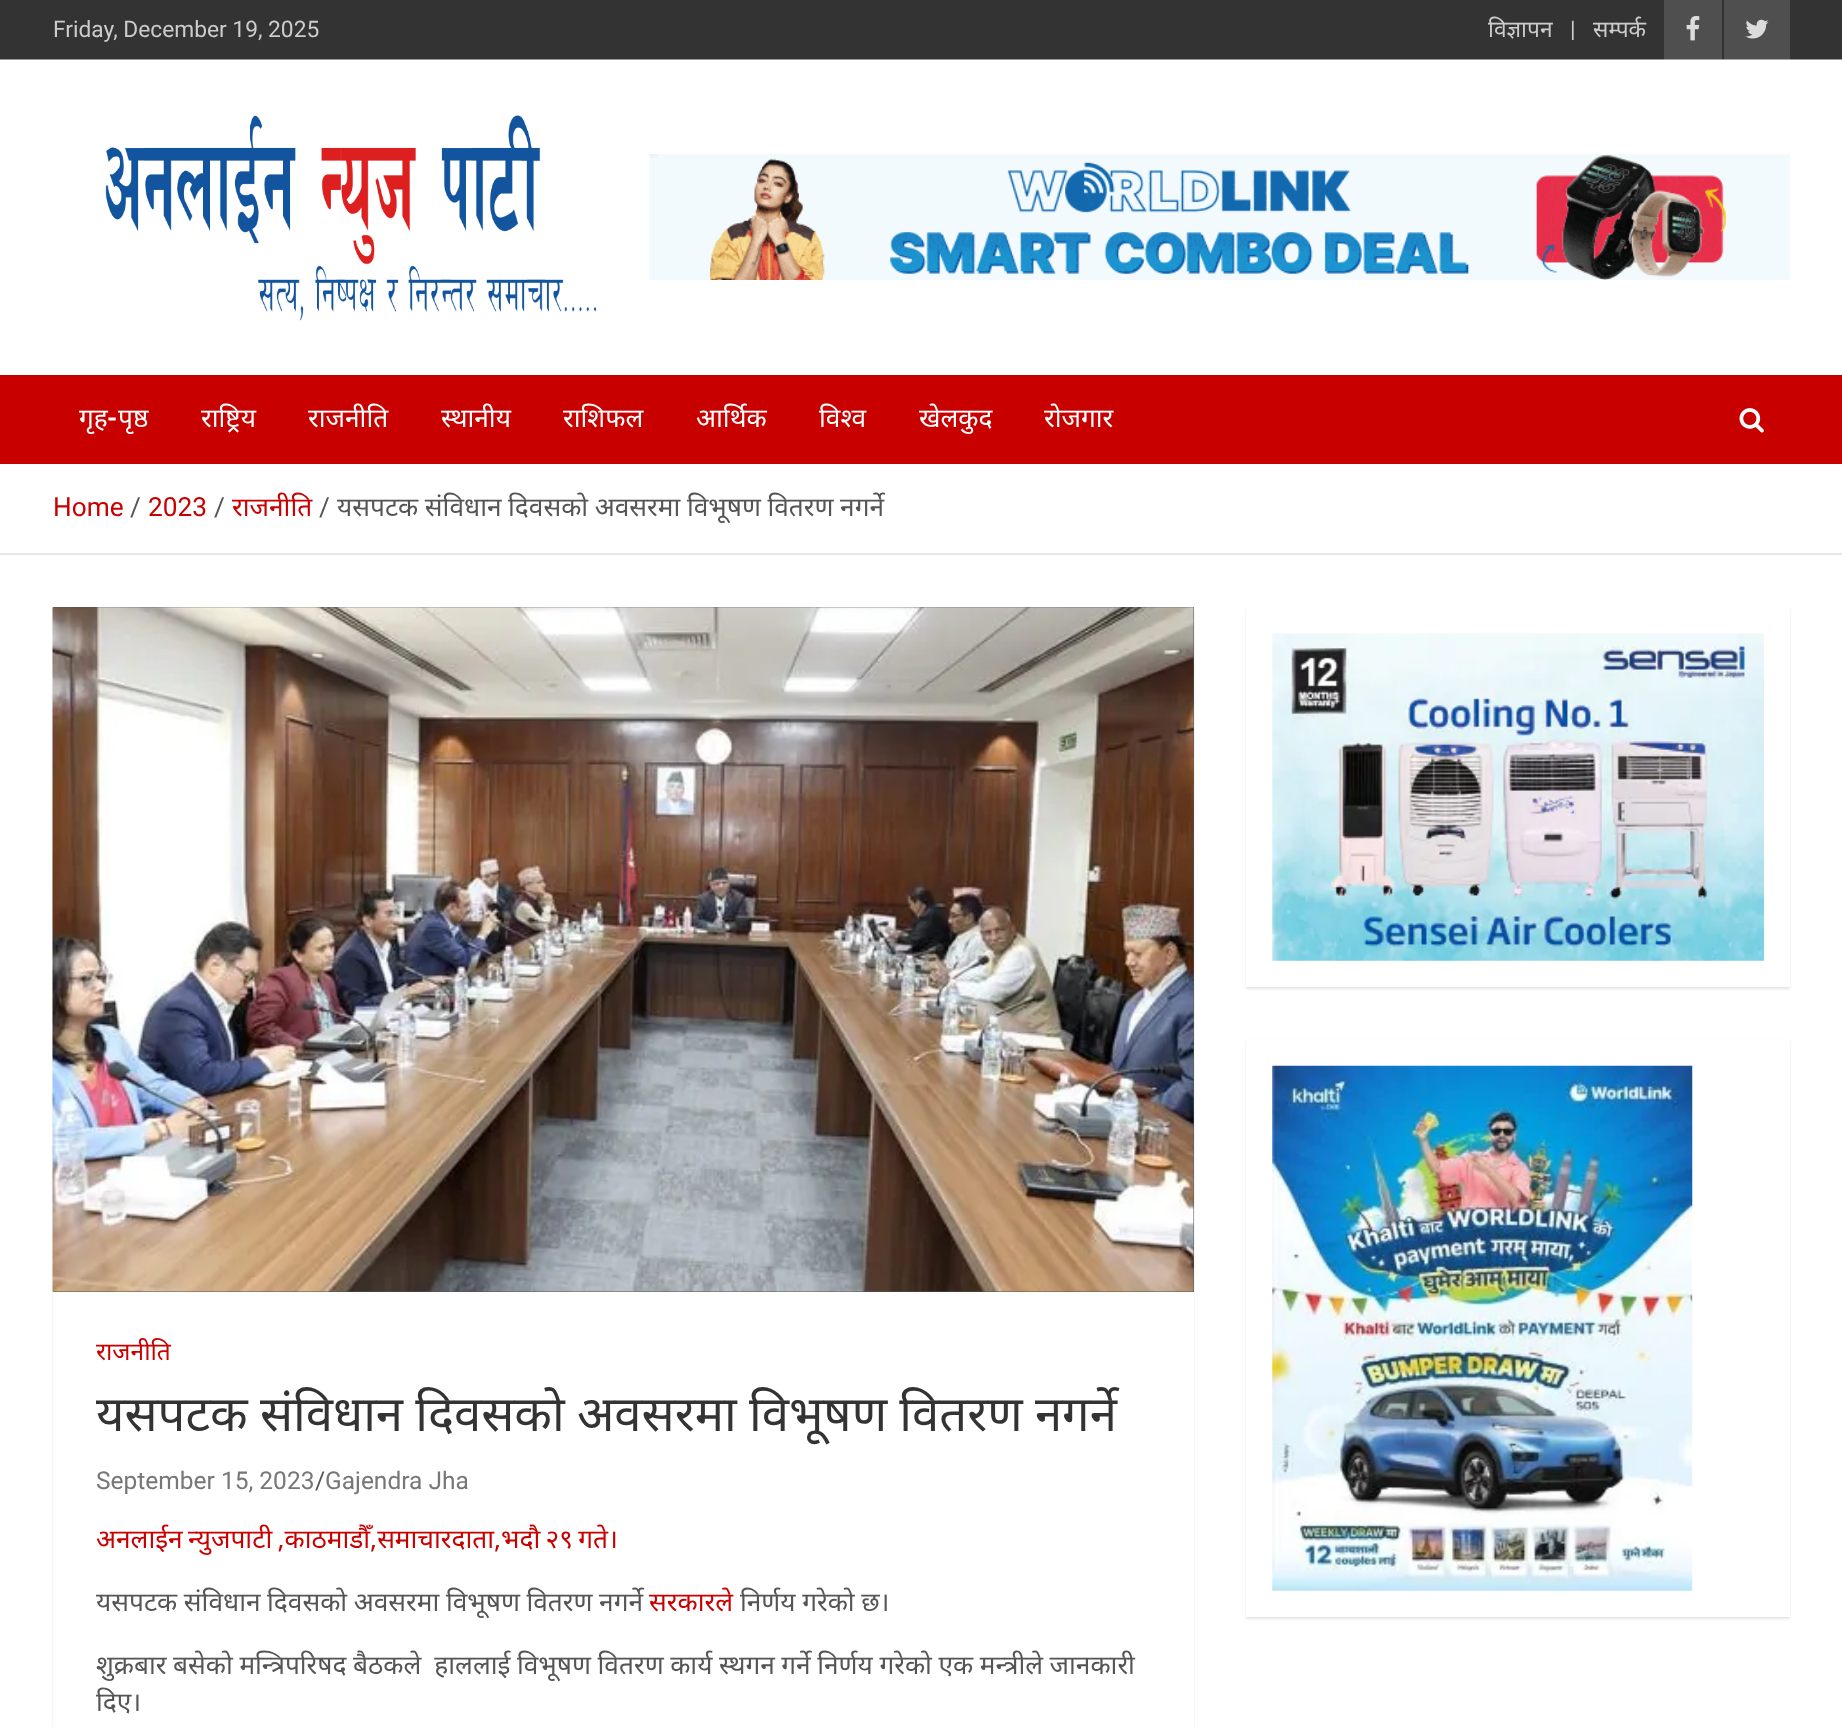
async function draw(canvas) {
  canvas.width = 1842;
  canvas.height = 1727;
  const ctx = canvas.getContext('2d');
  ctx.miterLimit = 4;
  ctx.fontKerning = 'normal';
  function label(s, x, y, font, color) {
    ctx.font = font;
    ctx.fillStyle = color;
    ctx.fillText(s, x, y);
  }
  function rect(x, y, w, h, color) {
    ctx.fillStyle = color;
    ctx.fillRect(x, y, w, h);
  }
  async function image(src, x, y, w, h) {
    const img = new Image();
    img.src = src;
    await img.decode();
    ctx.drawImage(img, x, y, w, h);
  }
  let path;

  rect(0, 0, 1842, 1727, '#fff');
  rect(0, 0, 1842, 59, '#333');
  rect(0, 59, 1842, 1, '#999');
  label('Friday, December 19, 2025', 53, 37, '22.75px Roboto', '#ccc');
  label('विज्ञापन', 1488, 37, '22.75px Noto Sans', '#ccc');
  label('|', 1570, 37, '22.75px Roboto', '#ccc');
  label('सम्पर्क', 1593, 37, '22.75px Noto Sans', '#ccc');
  rect(1664, 0, 58, 59, '#4f4f4f');
  rect(1664, 59, 58, 1, '#a7a7a7');
  await image('assets/img1.png', 1686, 16, 14, 25);
  rect(1724, 0, 66, 59, '#4f4f4f');
  rect(1724, 59, 66, 1, '#a7a7a7');
  await image('assets/img2.png', 1745, 19, 24, 20);
  await image('assets/img3.png', 105, 115, 492, 206);
  await image('assets/img4.png', 649, 154, 1141, 126);
  rect(0, 375, 1842, 89, '#c80000');
  label('गृह', 79, 427, '26.25px Noto Sans', '#fff');
  label('-', 107, 427, 'bold 26.25px Roboto', '#fff');
  label('पृष्ठ', 118, 427, '26.25px Noto Sans', '#fff');
  label('राष्ट्रिय', 201, 427, '26.25px Noto Sans', '#fff');
  label('राजनीति', 308, 427, '26.25px Noto Sans', '#fff');
  label('स्थानीय', 441, 427, '26.25px Noto Sans', '#fff');
  label('राशिफल', 563, 427, '26.25px Noto Sans', '#fff');
  label('आर्थिक', 696, 427, '26.25px Noto Sans', '#fff');
  label('विश्व', 819, 427, '26.25px Noto Sans', '#fff');
  label('खेलकुद', 919, 427, '26.25px Noto Sans', '#fff');
  label('रोजगार', 1044, 427, '26.25px Noto Sans', '#fff');
  await image('assets/img5.png', 1739, 408, 25, 25);
  rect(0, 553, 1842, 2, '#e6e6e6');
  label('Home', 53, 516, '26.25px Roboto', '#c80000');
  label('/', 130, 516, '26.25px Roboto', '#555');
  label('2023', 148, 516, '26.25px Roboto', '#c80000');
  label('/', 214, 516, '26.25px Roboto', '#555');
  label('राजनीति', 232, 516, '26.25px Noto Sans', '#c80000');
  label('/', 319, 516, '26.25px Roboto', '#555');
  ctx.wordSpacing = '-0.25px';
  label('यसपटक संविधान दिवसको अवसरमा विभूषण वितरण नगर्ने', 337, 516, '26.25px Noto Sans', '#555');
  ctx.fillStyle = '#0000001a';
  ctx.filter = 'blur(1px)';
  ctx.beginPath();
  ctx.rect(53, 609, 1141, 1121);
  ctx.fill();
  ctx.filter = 'none';
  rect(53, 1292, 1141, 435, '#fff');
  rect(53, 607, 1141, 685, '#555');
  await image('assets/img6.png', 52, 607, 1142, 685);
  ctx.wordSpacing = '0px';
  label('राजनीति', 96, 1360, '24.5px Noto Sans', '#c80000');
  ctx.wordSpacing = '-0.5px';
  label('यसपटक संविधान दिवसको अवसरमा विभूषण वितरण नगर्ने', 96, 1431, '49px Noto Sans', '#333');
  ctx.wordSpacing = '0px';
  label('September 15, 2023', 96, 1489, '24.5px Roboto', '#777');
  label('/', 315, 1489, '24.5px Roboto', '#555');
  label('Gajendra Jha', 325, 1489, '24.5px Roboto', '#777');
  ctx.wordSpacing = '-1.5px';
  label('अनलाईन न्युजपाटी ,काठमाडौँ,समाचारदाता,भदौ २९ गते।', 96, 1548, '26.25px Noto Sans', '#c80000');
  ctx.wordSpacing = '-0.25px';
  label('यसपटक संविधान दिवसको अवसरमा विभूषण वितरण नगर्ने', 96, 1611, '26.25px Noto Sans', '#555');
  ctx.wordSpacing = '0px';
  label('सरकारले', 649, 1611, '26.25px Noto Sans', '#c80000');
  ctx.wordSpacing = '-0.25px';
  label('निर्णय गरेको छ।', 740, 1611, '26.25px Noto Sans', '#555');
  label('शुक्रबार बसेको मन्त्रिपरिषद बैठकले  हाललाई विभूषण वितरण कार्य स्थगन गर्ने निर्णय गरेको एक मन्त्रीले जानकारी', 96, 1674, '26.25px Noto Sans', '#555');
  ctx.wordSpacing = '0px';
  label('दिए।', 96, 1711, '26.25px Noto Sans', '#555');
  ctx.save();
  path = new Path2D('M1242 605H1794V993H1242ZM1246 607H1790V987H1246Z');
  ctx.clip(path, 'evenodd');
  ctx.fillStyle = '#0000001a';
  ctx.filter = 'blur(1px)';
  ctx.beginPath();
  ctx.rect(1246, 609, 544, 380);
  ctx.fill();
  ctx.filter = 'none';
  ctx.restore();
  await image('assets/img7.png', 1272, 633, 492, 328);
  ctx.save();
  path = new Path2D('M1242 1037H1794V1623H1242ZM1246 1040H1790V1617H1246Z');
  ctx.clip(path, 'evenodd');
  ctx.fillStyle = '#0000001a';
  ctx.filter = 'blur(1px)';
  ctx.beginPath();
  ctx.rect(1246, 1041, 544, 578);
  ctx.fill();
  ctx.filter = 'none';
  ctx.restore();
  await image('assets/img8.png', 1272, 1065, 421, 526);
}

draw(document.querySelector('canvas'));
